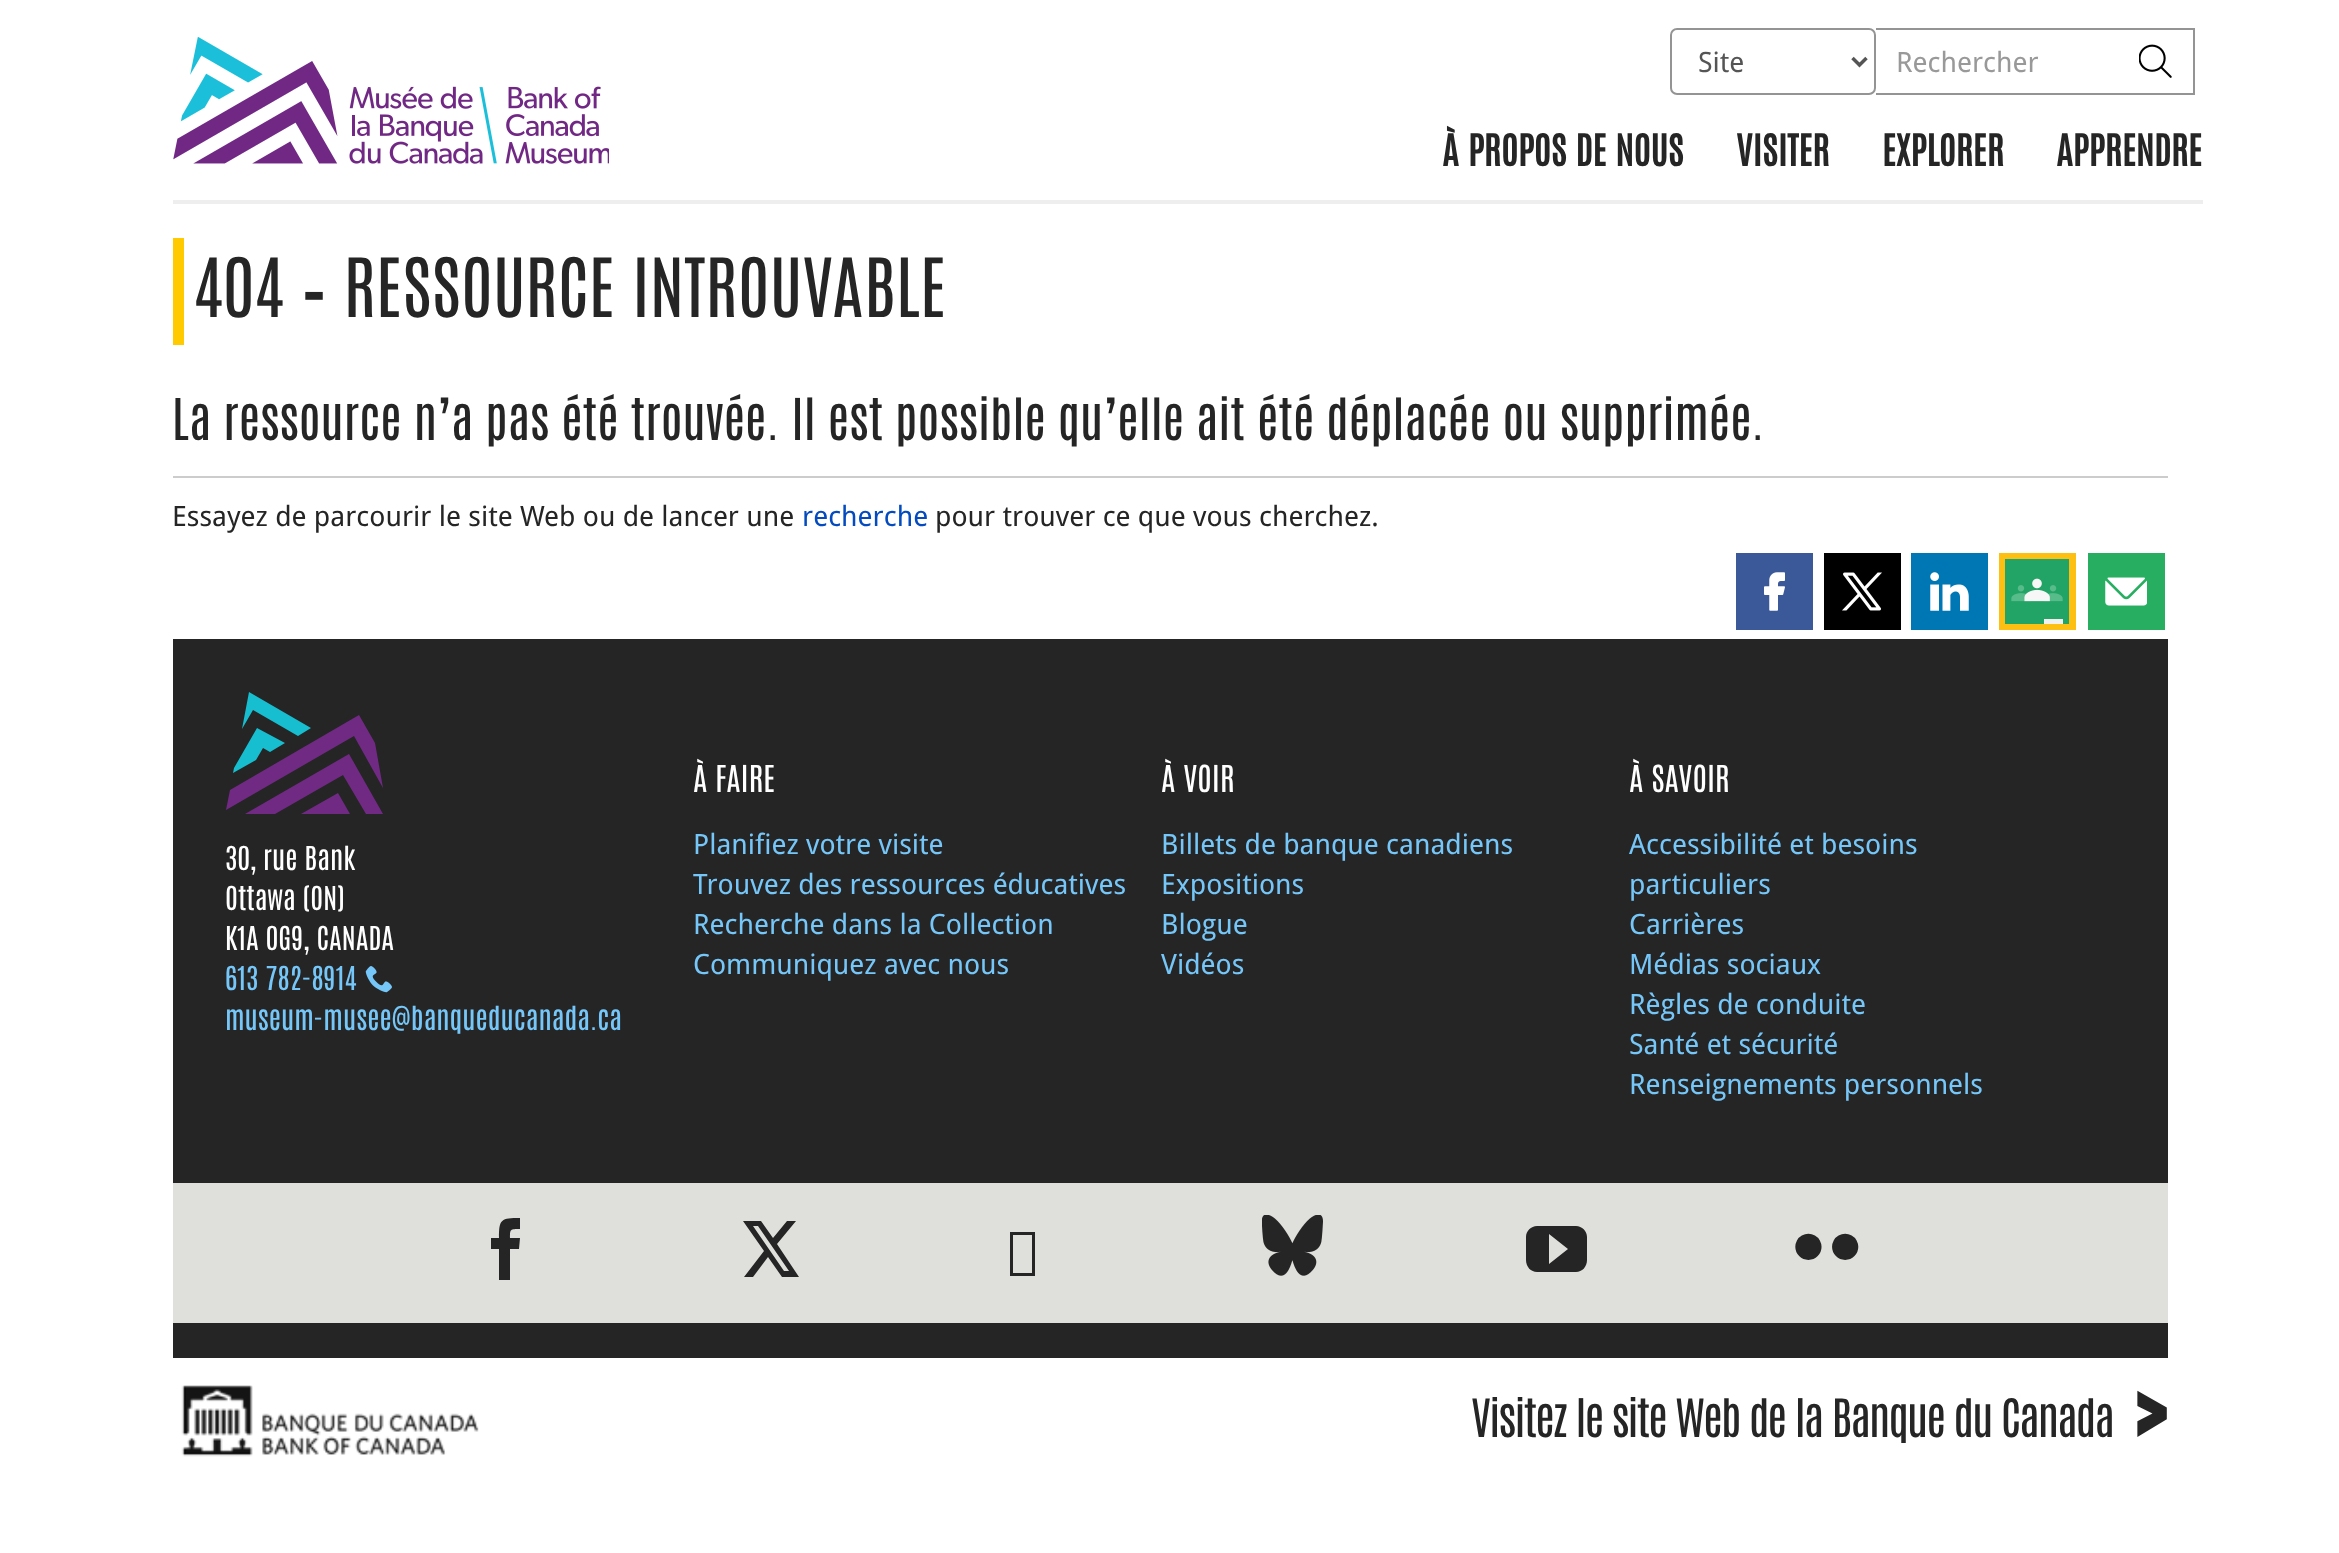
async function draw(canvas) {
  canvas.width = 2339;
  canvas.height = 1553;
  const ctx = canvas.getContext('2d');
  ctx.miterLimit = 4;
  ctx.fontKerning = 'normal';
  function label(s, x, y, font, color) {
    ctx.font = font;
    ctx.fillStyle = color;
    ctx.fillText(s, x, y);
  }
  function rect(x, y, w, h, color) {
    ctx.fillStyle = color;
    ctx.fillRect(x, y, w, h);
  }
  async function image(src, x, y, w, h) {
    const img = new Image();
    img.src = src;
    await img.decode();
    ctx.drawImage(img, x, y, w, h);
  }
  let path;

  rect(0, 0, 2339, 1553, '#fff');
  rect(173, 200, 2030, 4, '#eee');
  await image('assets/img1.png', 173, 37, 436, 127);
  ctx.beginPath();
  ctx.roundRect(1671, 29, 204, 65, 6);
  ctx.strokeStyle = '#949494';
  ctx.lineWidth = 2;
  ctx.stroke();
  path = new Path2D('M1852.5 58L1859.5 65L1866.5 58');
  ctx.strokeStyle = '#555';
  ctx.lineWidth = 3.5;
  ctx.stroke(path);
  label('Site', 1698, 72, '28px Droid Sans', '#555');
  rect(1876, 28, 319, 2, '#949494');
  rect(1876, 93, 242, 2, '#949494');
  label('Rechercher', 1896, 72, '28px Droid Sans', '#999');
  rect(2193, 28, 2, 67, '#949494');
  rect(2118, 93, 77, 2, '#949494');
  await image('assets/img2.png', 2139, 44, 33, 34);
  label('À PROPOS DE NOUS', 1442, 166, 'bold 36.75px Antonio', '#262525');
  label('VISITER', 1736, 166, 'bold 36.75px Antonio', '#262525');
  label('EXPLORER', 1882, 166, 'bold 36.75px Antonio', '#262525');
  label('APPRENDRE', 2056, 166, 'bold 36.75px Antonio', '#262525');
  rect(173, 238, 11, 107, '#ffcb00');
  label('404 – RESSOURCE INTROUVABLE', 193, 317, '69.25px Antonio', '#262525');
  rect(173, 476, 1995, 2, '#ccc');
  label('La ressource n’a pas été trouvée. Il est possible qu’elle ait été déplacée ou supprimée.', 172, 440, '49px Antonio', '#262525');
  label('Essayez de parcourir le site Web ou de lancer une', 172, 526, '28px Droid Sans', '#262525');
  label('recherche', 802, 526, '28px Droid Sans', '#034bbf');
  label('pour trouver ce que vous cherchez.', 935, 526, '28px Droid Sans', '#262525');
  rect(1736, 553, 77, 77, '#3b5998');
  await image('assets/img3.png', 1764, 572, 21, 39);
  rect(1824, 553, 77, 77, '#000');
  await image('assets/img4.png', 1842, 572, 40, 39);
  rect(1911, 553, 77, 77, '#0077b5');
  await image('assets/img5.png', 1930, 572, 39, 39);
  rect(1999, 553, 77, 77, '#fdbf12');
  await image('assets/img6.png', 2005, 559, 64, 65);
  rect(2088, 553, 77, 77, '#27ae60');
  await image('assets/img7.png', 2105, 577, 42, 29);
  rect(173, 639, 1995, 719, '#262525');
  ctx.fillStyle = '#702a84';
  path = new Path2D('M383 788L375 743L359 715L230 790L226 810L354 736Z');
  ctx.fill(path);
  ctx.fillStyle = '#17becf';
  path = new Path2D('M298 736L311 728L249 692L242 729L253 710Z');
  ctx.fill(path);
  path = new Path2D('M263 748L270 752L285 743L257 728L234 768L233 773L256 760Z');
  ctx.fill(path);
  ctx.fillStyle = '#702a84';
  path = new Path2D('M245 814H275L343 775L366 814H383L349 754Z');
  ctx.fill(path);
  path = new Path2D('M301 814H350L338 793Z');
  ctx.fill(path);
  label('30, rue Bank', 225, 870, '28px Antonio', '#fff');
  label('Ottawa (ON)', 225, 910, '28px Antonio', '#fff');
  label('K1A 0G9, CANADA', 225, 950, '28px Antonio', '#fff');
  label('613 782‑8914', 225, 990, '28px Antonio', '#76c7f9');
  await image('assets/img8.png', 365, 966, 27, 27);
  label('museum-musee@banqueducanada.ca', 225, 1030, '28px Antonio', '#76c7f9');
  label('À FAIRE', 693, 792, '31.5px Antonio', '#fff');
  label('Planifiez votre visite', 693, 854, '28px Droid Sans', '#76c7f9');
  label('Trouvez des ressources éducatives', 693, 894, '28px Droid Sans', '#76c7f9');
  label('Recherche dans la Collection', 693, 934, '28px Droid Sans', '#76c7f9');
  label('Communiquez avec nous', 693, 974, '28px Droid Sans', '#76c7f9');
  label('À VOIR', 1161, 792, '31.5px Antonio', '#fff');
  label('Billets de banque canadiens', 1161, 854, '28px Droid Sans', '#76c7f9');
  label('Expositions', 1161, 894, '28px Droid Sans', '#76c7f9');
  label('Blogue', 1161, 934, '28px Droid Sans', '#76c7f9');
  label('Vidéos', 1161, 974, '28px Droid Sans', '#76c7f9');
  label('À SAVOIR', 1629, 792, '31.5px Antonio', '#fff');
  label('Accessibilité et besoins', 1629, 854, '28px Droid Sans', '#76c7f9');
  label('particuliers', 1629, 894, '28px Droid Sans', '#76c7f9');
  label('Carrières', 1629, 934, '28px Droid Sans', '#76c7f9');
  label('Médias sociaux', 1629, 974, '28px Droid Sans', '#76c7f9');
  label('Règles de conduite', 1629, 1014, '28px Droid Sans', '#76c7f9');
  label('Santé et sécurité', 1629, 1054, '28px Droid Sans', '#76c7f9');
  label('Renseignements personnels', 1629, 1094, '28px Droid Sans', '#76c7f9');
  rect(173, 1183, 1995, 140, '#dfe0db');
  ctx.fillStyle = '#262525';
  path = new Path2D('M510 1280H499V1249H491V1238H499C499 1219 501 1218 520 1218V1229C510 1229 510 1229 510 1238H520L519 1249H510Z');
  ctx.fill(path);
  path = new Path2D('M787 1221H796L777 1244L799 1277H782L768 1257L753 1277H744L764 1251L743 1221H761L773 1238ZM784 1271H789L758 1226H753Z');
  ctx.fill(path);
  path = new Path2D('M1010 1276V1232H1035V1276ZM1013 1273H1032V1235H1013Z');
  ctx.fill(path);
  await image('assets/img9.png', 1262, 1215, 61, 61);
  path = new Path2D('M1576 1226H1537C1531 1226 1526 1231 1526 1237V1260C1526 1267 1531 1272 1537 1272H1576C1582 1272 1587 1267 1587 1260V1237C1587 1231 1582 1226 1576 1226ZM1549 1264V1234L1568 1249Z');
  ctx.fill(path);
  label('●●', 1790, 1264, '61px Liberation Sans', '#262525');
  await image('assets/img10.png', 181, 1385, 298, 72);
  ctx.letterSpacing = '-1.75px';
  label('Visitez le site Web de la Banque du Canada', 1471, 1437, '44.75px Antonio', '#262525');
  label('›', 2129, 1456, 'bold 112px Antonio', '#262525');
}

draw(document.querySelector('canvas'));
